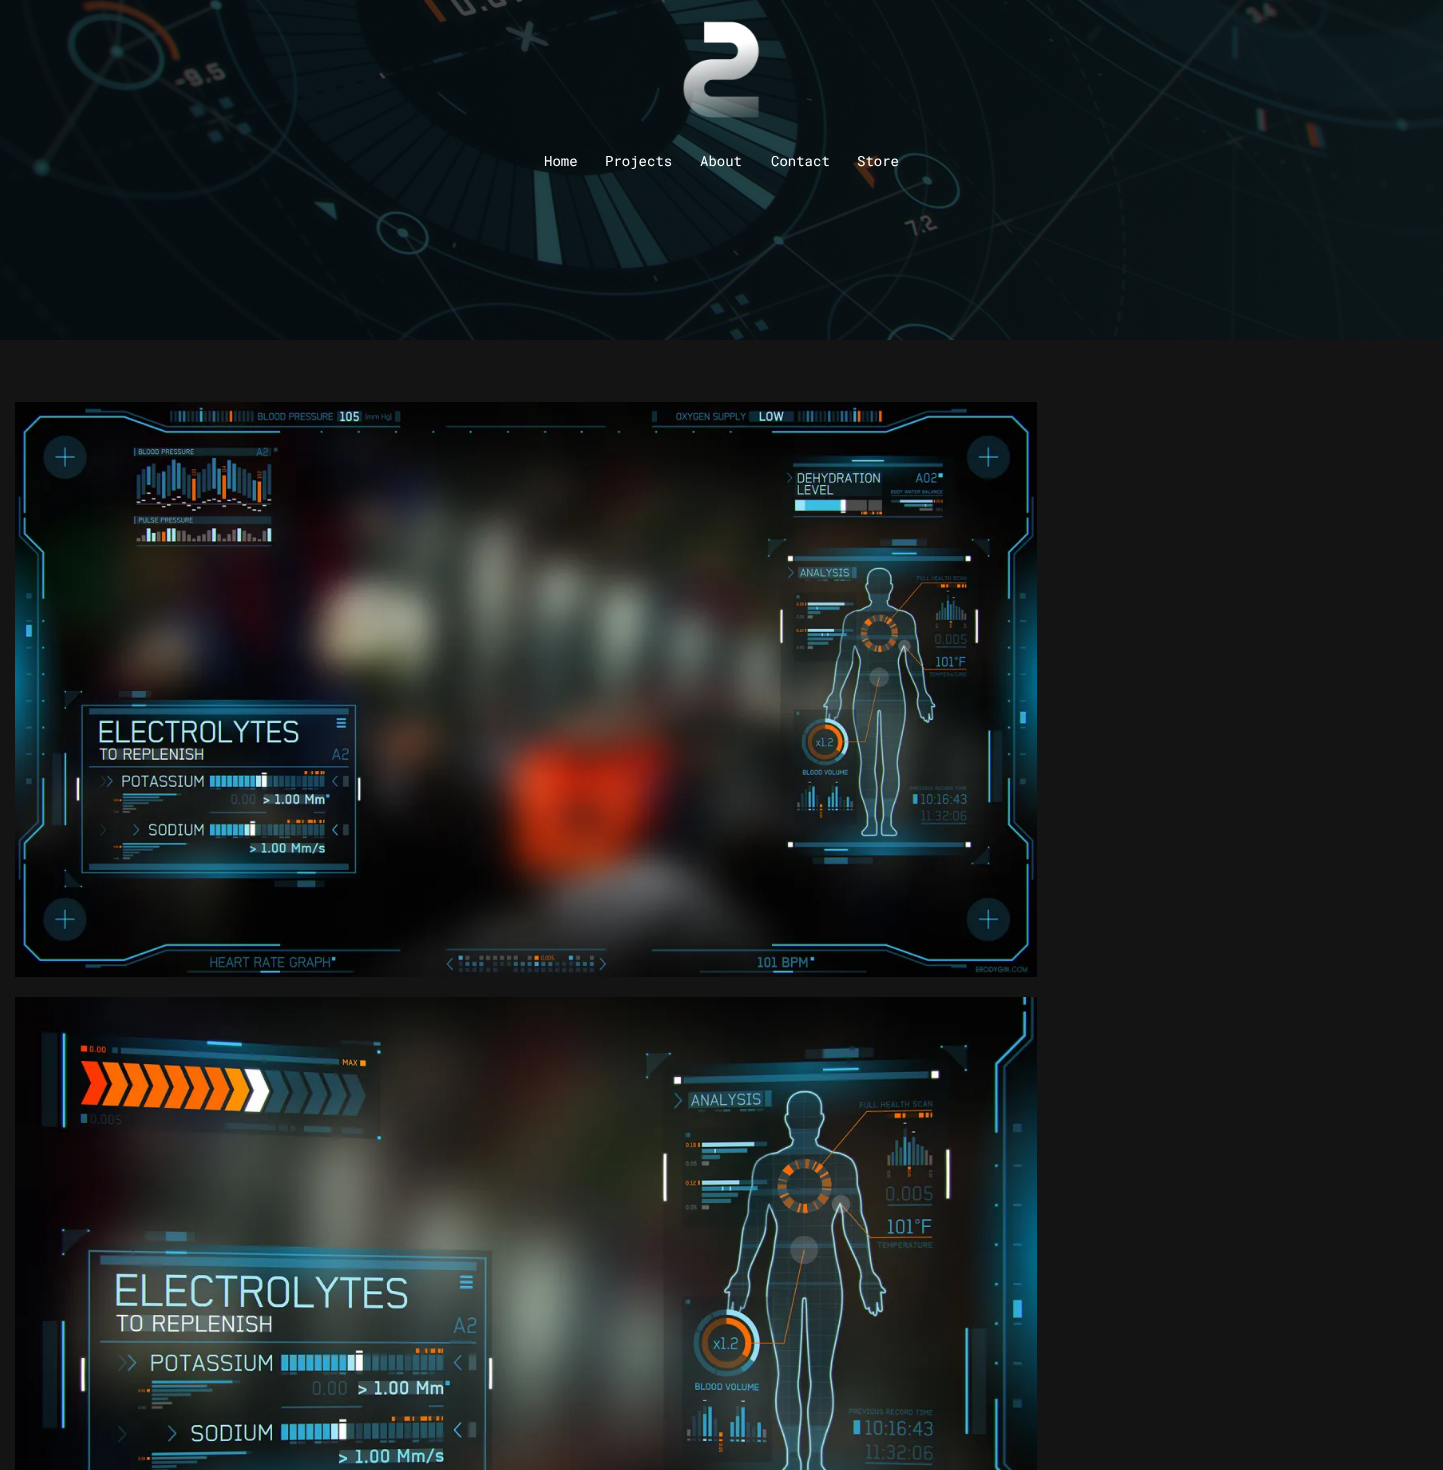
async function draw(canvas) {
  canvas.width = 1443;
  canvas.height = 1470;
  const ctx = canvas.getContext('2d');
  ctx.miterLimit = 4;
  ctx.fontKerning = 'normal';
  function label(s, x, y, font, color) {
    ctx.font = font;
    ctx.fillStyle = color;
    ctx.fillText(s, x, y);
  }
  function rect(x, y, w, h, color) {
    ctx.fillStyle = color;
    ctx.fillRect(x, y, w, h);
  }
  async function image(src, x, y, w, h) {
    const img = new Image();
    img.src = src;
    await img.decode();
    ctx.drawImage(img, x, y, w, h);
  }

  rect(0, 0, 1443, 1470, '#141414');
  await image('assets/img1.png', 0, 0, 1443, 340);
  await image('assets/img2.png', 683, 21, 77, 97);
  label('Home', 544, 166, '14px Roboto Mono', '#fff');
  label('Projects', 605, 166, '14px Roboto Mono', '#fff');
  label('About', 700, 166, '14px Roboto Mono', '#fff');
  label('Contact', 771, 166, '14px Roboto Mono', '#fff');
  label('Store', 857, 166, '14px Roboto Mono', '#fff');
  await image('assets/img3.png', 15, 402, 1022, 575);
  await image('assets/img4.png', 15, 997, 1022, 473);
}

draw(document.querySelector('canvas'));
